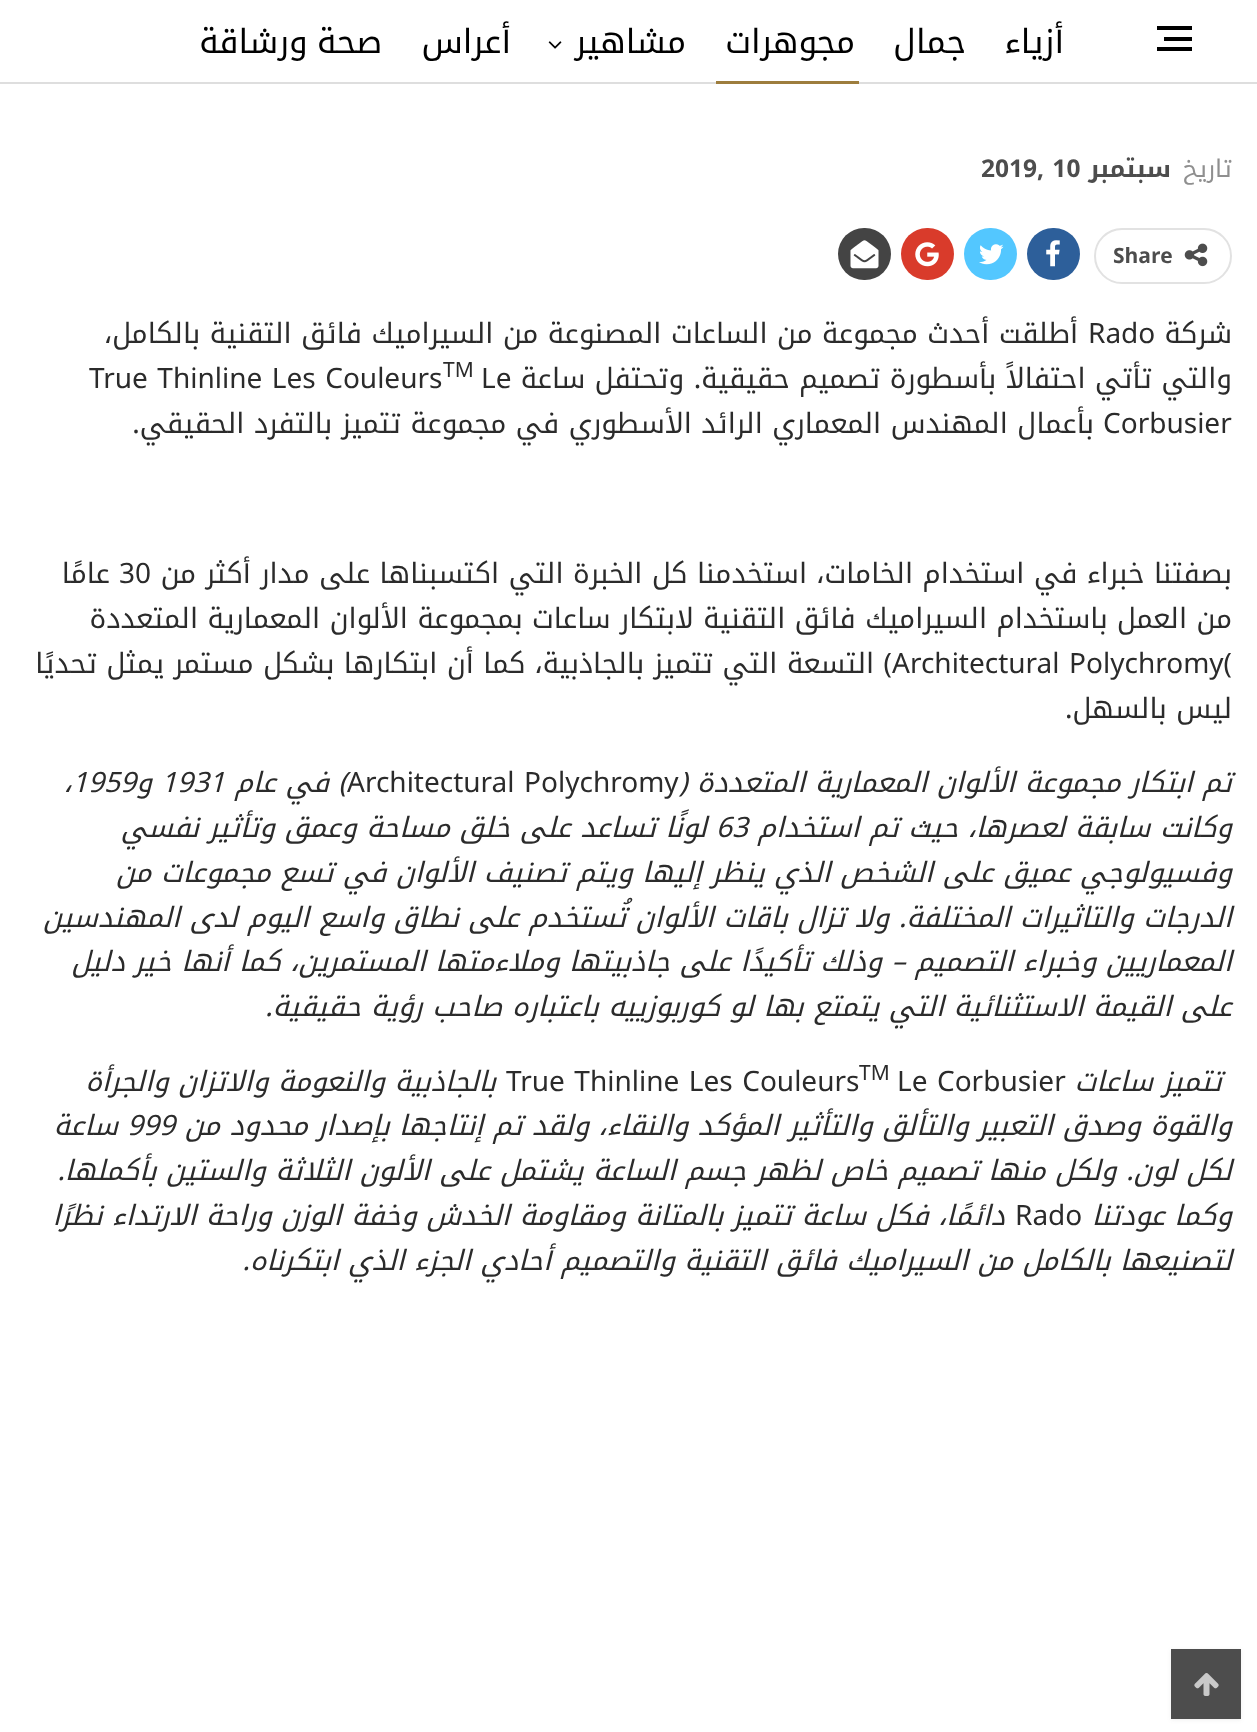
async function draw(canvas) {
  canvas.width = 1257;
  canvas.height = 1732;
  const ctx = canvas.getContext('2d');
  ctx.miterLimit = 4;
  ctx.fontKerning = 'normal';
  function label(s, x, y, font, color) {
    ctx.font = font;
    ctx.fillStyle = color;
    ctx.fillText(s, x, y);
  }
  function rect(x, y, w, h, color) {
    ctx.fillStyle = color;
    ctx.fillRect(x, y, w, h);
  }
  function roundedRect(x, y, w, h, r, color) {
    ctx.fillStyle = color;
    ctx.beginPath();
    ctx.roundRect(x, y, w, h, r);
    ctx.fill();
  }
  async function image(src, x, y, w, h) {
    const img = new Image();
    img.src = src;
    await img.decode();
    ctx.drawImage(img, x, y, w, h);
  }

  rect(0, 0, 1257, 1732, '#fff');
  rect(0, 82, 1257, 2, '#dedede');
  rect(1164, 37, 28, 4, '#000');
  rect(1157, 26, 35, 4, '#000');
  rect(1157, 47, 35, 4, '#000');
  ctx.letterSpacing = '0.25px';
  ctx.direction = 'rtl';
  label('أزياء', 1064, 53, '33.25px Noto Kufi Arabic', '#000');
  label('جمال', 966, 53, '33.25px Noto Kufi Arabic', '#000');
  label('مجوهرات', 855, 53, '33.25px Noto Kufi Arabic', '#000');
  rect(716, 81, 143, 3, '#9d7d3d');
  label('مشاهير', 686, 53, '33.25px Noto Kufi Arabic', '#000');
  await image('assets/img1.png', 548, 41, 14, 8);
  label('أعراس', 511, 53, '33.25px Noto Kufi Arabic', '#000');
  ctx.wordSpacing = '-2px';
  label('صحة ورشاقة', 382, 53, '33.25px Noto Kufi Arabic', '#000');
  ctx.letterSpacing = '0px';
  ctx.wordSpacing = '0px';
  label('تاريخ', 1232, 177, '24.5px Noto Kufi Arabic', '#8f8f8f');
  label('سبتمبر', 1171, 177, 'bold 24.5px Noto Kufi Arabic', '#4d4d4d');
  ctx.direction = 'ltr';
  label('2019, 10', 981, 177, 'bold 24.5px Noto Kufi Arabic', '#4d4d4d');
  ctx.beginPath();
  ctx.roundRect(1095, 229, 136, 54, 27);
  ctx.strokeStyle = '#e2e2e2';
  ctx.lineWidth = 2;
  ctx.stroke();
  await image('assets/img2.png', 1184, 243, 24, 24);
  label('Share', 1113, 263, 'bold 21px Noto Kufi Arabic', '#4d4d4d');
  roundedRect(1027, 228, 53, 52, 26, '#2d5f9a');
  await image('assets/img3.png', 1046, 240, 14, 27);
  roundedRect(964, 228, 53, 52, 26, '#53c7ff');
  await image('assets/img4.png', 979, 244, 25, 21);
  roundedRect(901, 228, 53, 52, 26, '#d93b2b');
  await image('assets/img5.png', 915, 242, 24, 25);
  roundedRect(838, 228, 53, 52, 26, '#444');
  await image('assets/img6.png', 850, 240, 29, 29);
  ctx.direction = 'rtl';
  label('شركة', 1232, 343, '28px Noto Kufi Arabic', '#2b2b2b');
  ctx.direction = 'ltr';
  label('Rado', 1088, 343, '28px Noto Kufi Arabic', '#2b2b2b');
  ctx.direction = 'rtl';
  label('أطلقت أحدث مجموعة من الساعات المصنوعة من السيراميك فائق التقنية بالكامل،', 1078, 343, '28px Noto Kufi Arabic', '#2b2b2b');
  label('والتي تأتي احتفالاً بأسطورة تصميم حقيقية. وتحتفل ساعة', 1232, 388, '28px Noto Kufi Arabic', '#2b2b2b');
  ctx.direction = 'ltr';
  label('Le', 481, 388, '28px Noto Kufi Arabic', '#2b2b2b');
  label('TM', 443, 377, '21px Noto Kufi Arabic', '#2b2b2b');
  label('True Thinline Les Couleurs', 89, 388, '28px Noto Kufi Arabic', '#2b2b2b');
  label('Corbusier', 1103, 433, '28px Noto Kufi Arabic', '#2b2b2b');
  ctx.direction = 'rtl';
  label('بأعمال المهندس المعماري الرائد الأسطوري في مجموعة تتميز بالتفرد الحقيقي.', 1094, 433, '28px Noto Kufi Arabic', '#2b2b2b');
  label('بصفتنا خبراء في استخدام الخامات، استخدمنا كل الخبرة التي اكتسبناها على مدار أكثر من', 1232, 583, '28px Noto Kufi Arabic', '#2b2b2b');
  ctx.direction = 'ltr';
  label('30', 119, 583, '28px Noto Kufi Arabic', '#2b2b2b');
  ctx.direction = 'rtl';
  label('عامًا', 110, 583, '28px Noto Kufi Arabic', '#2b2b2b');
  label('من العمل باستخدام السيراميك فائق التقنية لابتكار ساعات بمجموعة الألوان المعمارية المتعددة', 1232, 628, '28px Noto Kufi Arabic', '#2b2b2b');
  ctx.direction = 'ltr';
  label('Architectural Polychromy(', 892, 673, '28px Noto Kufi Arabic', '#2b2b2b');
  ctx.direction = 'rtl';
  label(') التسعة التي تتميز بالجاذبية، كما أن ابتكارها بشكل مستمر يمثل تحديًا', 892, 673, '28px Noto Kufi Arabic', '#2b2b2b');
  label('ليس بالسهل.', 1232, 718, '28px Noto Kufi Arabic', '#2b2b2b');
  label('تم ابتكار مجموعة الألوان المعمارية المتعددة (', 1232, 792, 'italic 28px Noto Kufi Arabic', '#2b2b2b');
  ctx.direction = 'ltr';
  label('Architectural Polychromy', 347, 792, '28px Noto Kufi Arabic', '#2b2b2b');
  ctx.direction = 'rtl';
  label(') في عام', 347, 792, 'italic 28px Noto Kufi Arabic', '#2b2b2b');
  ctx.direction = 'ltr';
  label('1931', 161, 792, 'italic 28px Noto Kufi Arabic', '#2b2b2b');
  label('،1959', 64, 792, 'italic 28px Noto Kufi Arabic', '#2b2b2b');
  ctx.direction = 'rtl';
  label('و', 152, 792, 'italic 28px Noto Kufi Arabic', '#2b2b2b');
  label('وكانت سابقة لعصرها، حيث تم استخدام', 1232, 837, 'italic 28px Noto Kufi Arabic', '#2b2b2b');
  ctx.direction = 'ltr';
  label('63', 716, 837, 'italic 28px Noto Kufi Arabic', '#2b2b2b');
  ctx.direction = 'rtl';
  label('لونًا تساعد على خلق مساحة وعمق وتأثير نفسي', 707, 837, 'italic 28px Noto Kufi Arabic', '#2b2b2b');
  label('وفسيولوجي عميق على الشخص الذي ينظر إليها ويتم تصنيف الألوان في تسع مجموعات من', 1232, 882, 'italic 28px Noto Kufi Arabic', '#2b2b2b');
  label('الدرجات والتاثيرات المختلفة. ولا تزال باقات الألوان تُستخدم على نطاق واسع اليوم لدى المهندسين', 1232, 927, 'italic 28px Noto Kufi Arabic', '#2b2b2b');
  label('المعماريين وخبراء التصميم – وذلك تأكيدًا على جاذبيتها وملاءمتها المستمرين، كما أنها خير دليل', 1232, 971, 'italic 28px Noto Kufi Arabic', '#2b2b2b');
  label('على القيمة الاستثنائية التي يتمتع بها لو كوربوزييه باعتباره صاحب رؤية حقيقية.', 1232, 1016, 'italic 28px Noto Kufi Arabic', '#2b2b2b');
  label('تتميز ساعات', 1222, 1091, 'italic 28px Noto Kufi Arabic', '#2b2b2b');
  ctx.direction = 'ltr';
  label('Le Corbusier', 897, 1091, '28px Noto Kufi Arabic', '#2b2b2b');
  label('TM', 859, 1080, '21px Noto Kufi Arabic', '#2b2b2b');
  label('True Thinline Les Couleurs', 506, 1091, '28px Noto Kufi Arabic', '#2b2b2b');
  ctx.direction = 'rtl';
  label('بالجاذبية والنعومة والاتزان والجرأة', 496, 1091, 'italic 28px Noto Kufi Arabic', '#2b2b2b');
  label('والقوة وصدق التعبير والتألق والتأثير المؤكد والنقاء، ولقد تم إنتاجها بإصدار محدود من', 1232, 1135, 'italic 28px Noto Kufi Arabic', '#2b2b2b');
  ctx.direction = 'ltr';
  label('999', 127, 1135, 'italic 28px Noto Kufi Arabic', '#2b2b2b');
  ctx.direction = 'rtl';
  label('ساعة', 118, 1135, 'italic 28px Noto Kufi Arabic', '#2b2b2b');
  label('لكل لون. ولكل منها تصميم خاص لظهر جسم الساعة يشتمل على الألون الثلاثة والستين بأكملها.', 1232, 1180, 'italic 28px Noto Kufi Arabic', '#2b2b2b');
  label('وكما عودتنا', 1232, 1225, 'italic 28px Noto Kufi Arabic', '#2b2b2b');
  ctx.direction = 'ltr';
  label('Rado', 1015, 1225, '28px Noto Kufi Arabic', '#2b2b2b');
  ctx.direction = 'rtl';
  label('دائمًا، فكل ساعة تتميز بالمتانة ومقاومة الخدش وخفة الوزن وراحة الارتداء نظرًا', 1005, 1225, 'italic 28px Noto Kufi Arabic', '#2b2b2b');
  label('لتصنيعها بالكامل من السيراميك فائق التقنية والتصميم أحادي الجزء الذي ابتكرناه.', 1232, 1270, 'italic 28px Noto Kufi Arabic', '#2b2b2b');
  ctx.fillStyle = '#4d4d4d17';
  ctx.filter = 'blur(2px)';
  ctx.beginPath();
  ctx.rect(1171, 1650, 70, 70);
  ctx.fill();
  ctx.filter = 'none';
  rect(1171, 1649, 70, 70, '#4d4d4d');
  await image('assets/img7.png', 1194, 1673, 25, 23);
}

draw(document.querySelector('canvas'));
